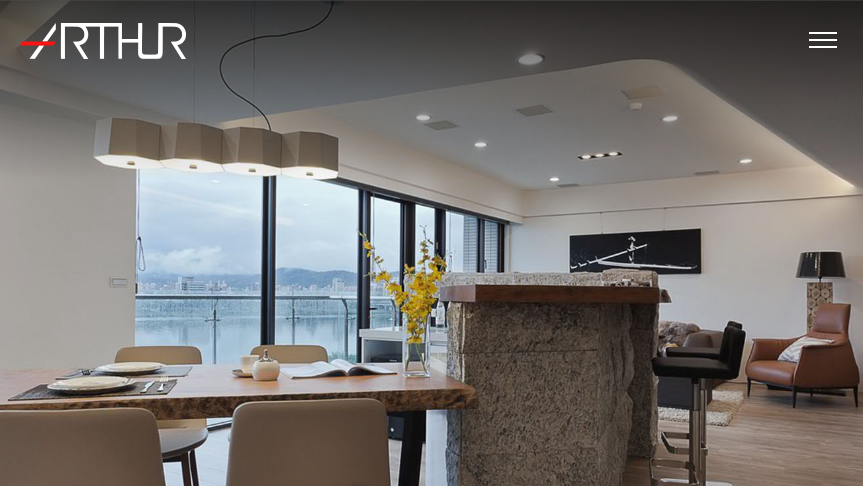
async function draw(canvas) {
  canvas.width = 863;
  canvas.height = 486;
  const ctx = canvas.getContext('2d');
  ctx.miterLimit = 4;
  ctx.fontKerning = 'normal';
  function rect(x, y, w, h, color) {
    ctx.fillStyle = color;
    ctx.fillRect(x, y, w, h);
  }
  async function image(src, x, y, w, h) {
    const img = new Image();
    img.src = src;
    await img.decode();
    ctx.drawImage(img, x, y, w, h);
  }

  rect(0, 0, 863, 486, '#fff');
  await image('assets/img1.png', 0, 0, 863, 486);
  await image('assets/img2.png', 20, 23, 166, 36);
  rect(809, 39, 28, 2, '#fff');
  rect(809, 32, 28, 2, '#fff');
  rect(809, 46, 28, 2, '#fff');
}

draw(document.querySelector('canvas'));
